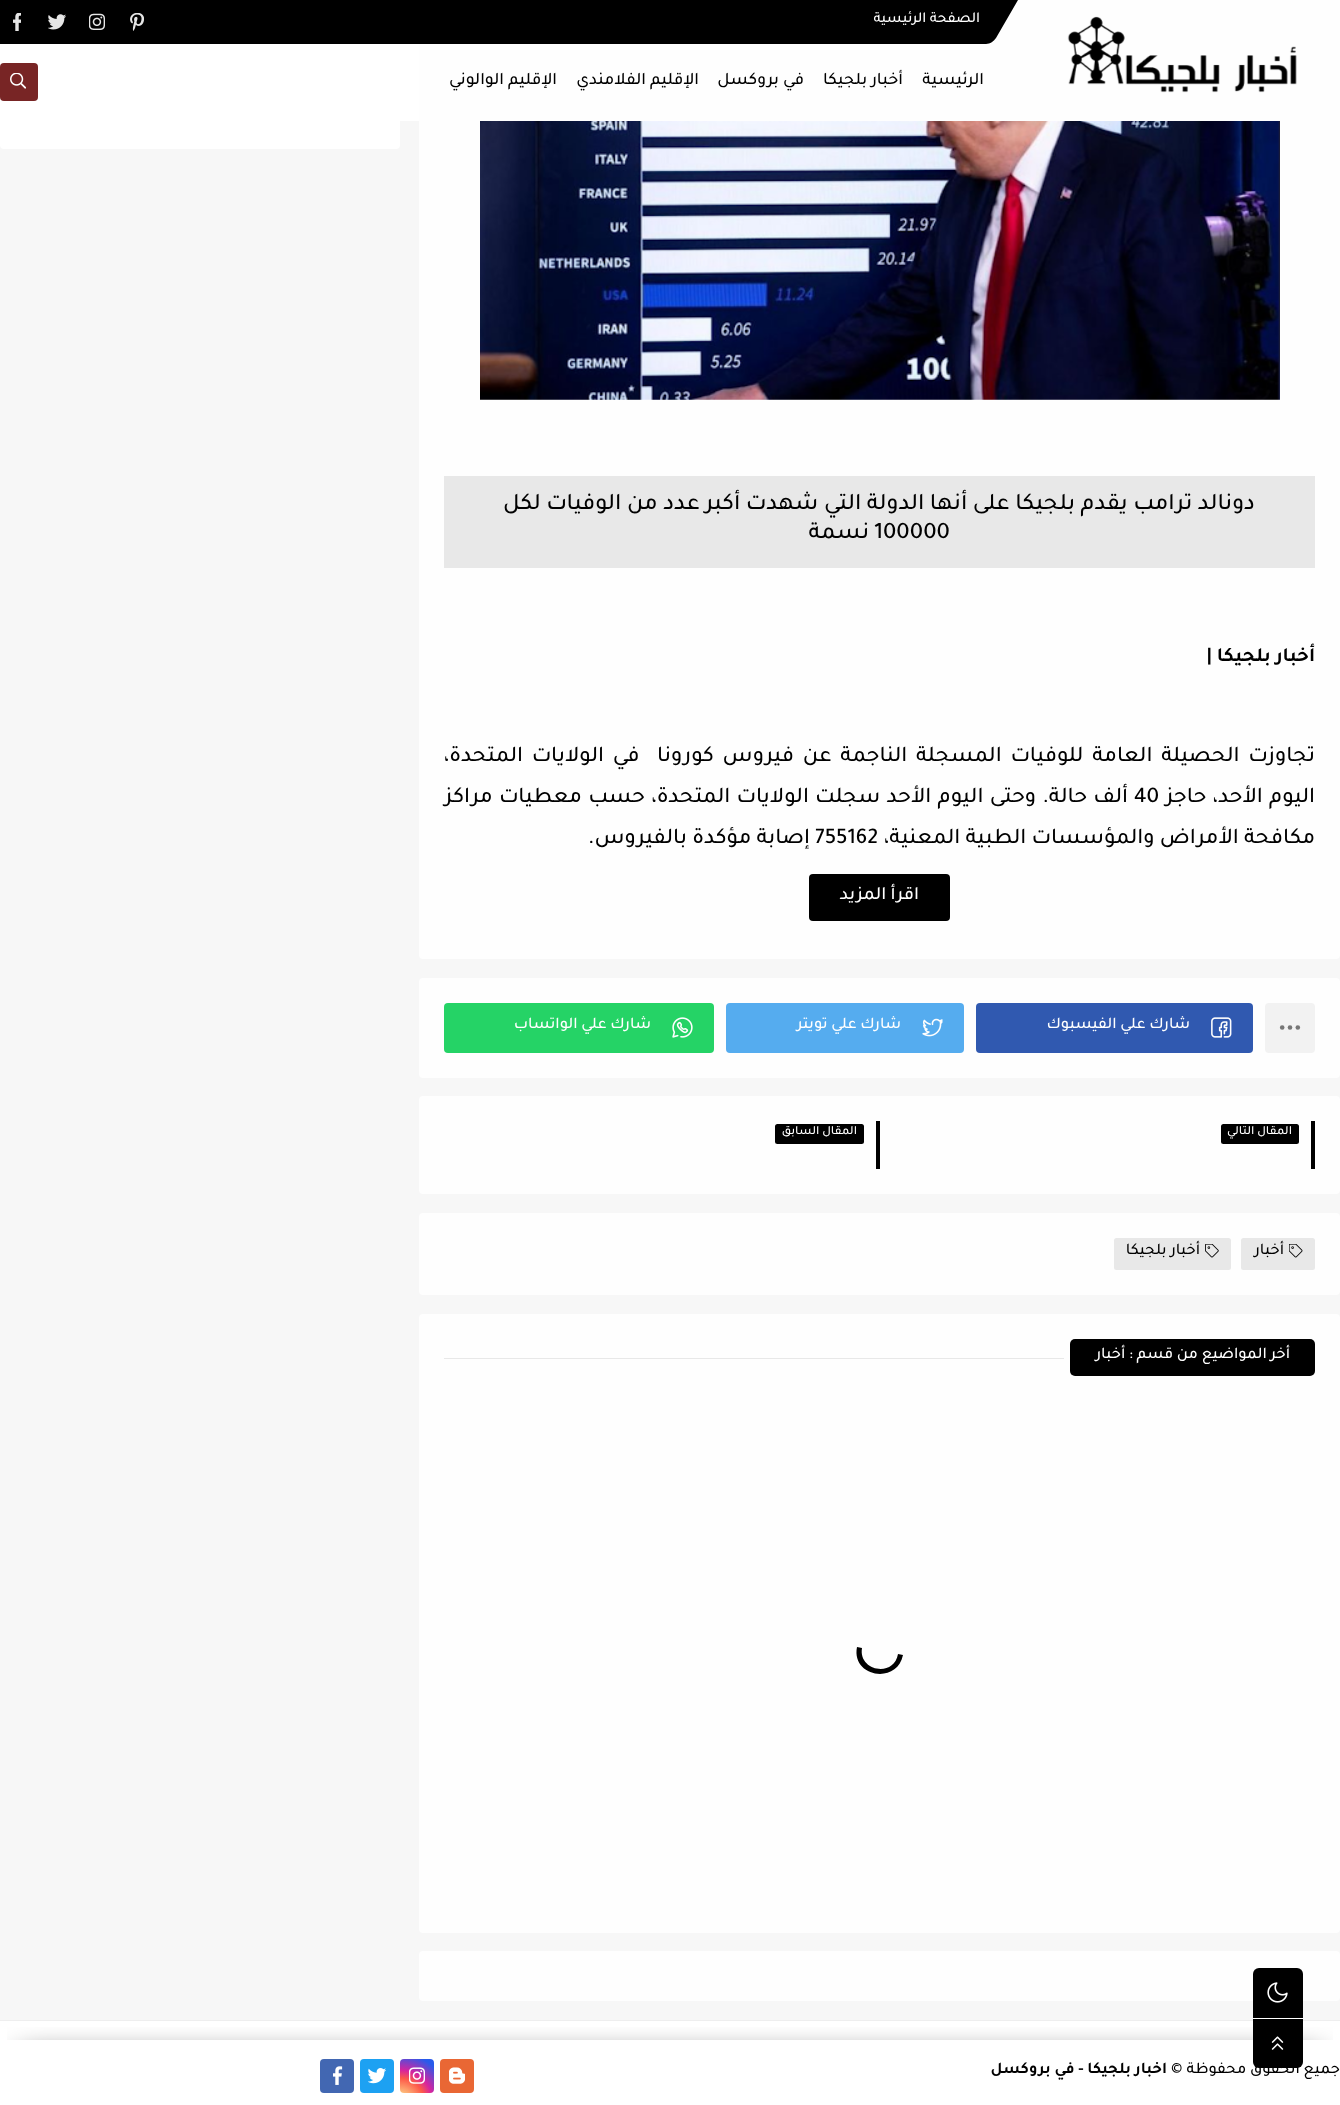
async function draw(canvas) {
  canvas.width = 1340;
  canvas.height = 2105;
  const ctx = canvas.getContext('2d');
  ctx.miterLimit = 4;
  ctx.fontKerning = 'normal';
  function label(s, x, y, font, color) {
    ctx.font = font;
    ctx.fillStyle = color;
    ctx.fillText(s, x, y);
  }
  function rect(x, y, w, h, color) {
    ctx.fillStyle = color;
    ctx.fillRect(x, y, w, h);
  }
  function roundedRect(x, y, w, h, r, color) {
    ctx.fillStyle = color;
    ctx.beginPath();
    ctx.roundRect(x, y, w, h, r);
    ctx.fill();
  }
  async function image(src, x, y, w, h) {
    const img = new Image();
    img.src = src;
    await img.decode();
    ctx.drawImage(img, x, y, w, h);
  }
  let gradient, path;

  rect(0, 0, 1340, 2105, '#f7f7f7');
  rect(400, 0, 19, 121, '#fff');
  roundedRect(0, -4, 400, 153, 4, '#fff');
  roundedRect(419, -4, 921, 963, 4, '#fefefe');
  ctx.fillStyle = '#000';
  path = new Path2D('M-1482 0H1018L996 38C994 41 990 44 986 44H-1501C-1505 44-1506 41-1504 38Z');
  ctx.fill(path);
  ctx.direction = 'rtl';
  label('الصفحة الرئيسية', 980, 22, '500 15px Tajawal', '#fff');
  await image('assets/img1.png', 130, 13, 14, 18);
  await image('assets/img2.png', 89, 13, 16, 17);
  await image('assets/img3.png', 48, 14, 18, 16);
  await image('assets/img4.png', 13, 13, 8, 18);
  await image('assets/img5.png', 1067, 16, 230, 77);
  label('الرئيسية', 984, 84, '500 17.5px Tajawal', '#000');
  label('أخبار بلجيكا', 903, 84, '500 17.5px Tajawal', '#000');
  label('في بروكسل', 804, 84, '500 17.5px Tajawal', '#000');
  label('الإقليم الفلامندي', 699, 84, '500 17.5px Tajawal', '#000');
  label('الإقليم الوالوني', 557, 84, '500 17.5px Tajawal', '#000');
  roundedRect(0, 63, 38, 38, 4, '#782525');
  await image('assets/img6.png', 10, 73, 16, 16);
  await image('assets/img7.png', 480, 121, 800, 279);
  rect(444, 476, 871, 92, '#e8e8e8');
  label('دونالد ترامب يقدم بلجيكا على أنها الدولة التي شهدت أكبر عدد من الوفيات لكل', 1255, 509, '500 23.75px Tajawal', '#000');
  ctx.direction = 'ltr';
  label('100000', 874, 538, '500 23.75px Tajawal', '#000');
  ctx.direction = 'rtl';
  label('نسمة', 869, 538, '500 23.75px Tajawal', '#000');
  label('أخبار بلجيكا |', 1315, 661, 'bold 20px Tajawal', '#000');
  ctx.wordSpacing = '3.5px';
  label('تجاوزت الحصيلة العامة للوفيات المسجلة الناجمة عن فيروس كورونا  في الولايات المتحدة،', 1315, 761, '500 22.5px Tajawal', '#000');
  ctx.wordSpacing = '1px';
  label('اليوم الأحد، حاجز', 1315, 802, '500 22.5px Tajawal', '#000');
  ctx.wordSpacing = '0px';
  ctx.direction = 'ltr';
  label('40', 1134, 802, '500 22.5px Tajawal', '#000');
  ctx.wordSpacing = '1px';
  ctx.direction = 'rtl';
  label('ألف حالة. وحتى اليوم الأحد سجلت الولايات المتحدة، حسب معطيات مراكز', 1128, 802, '500 22.5px Tajawal', '#000');
  ctx.wordSpacing = '0px';
  label('مكافحة الأمراض والمؤسسات الطبية المعنية،', 1315, 843, '500 22.5px Tajawal', '#000');
  ctx.direction = 'ltr';
  label('755162', 815, 843, '500 22.5px Tajawal', '#000');
  ctx.direction = 'rtl';
  label('إصابة مؤكدة بالفيروس.', 810, 843, '500 22.5px Tajawal', '#000');
  roundedRect(809, 874, 141, 47, 4, '#000');
  label('اقرأ المزيد', 919, 899, '500 18.75px Tajawal', '#fff');
  roundedRect(419, 978, 921, 100, 4, '#fefefe');
  roundedRect(1265, 1003, 50, 50, 4, '#f2f2f2');
  ctx.fillStyle = '#767676';
  ctx.beginPath();
  ctx.arc(1290, 1027.5, 2.3, 0, 2 * Math.PI);
  ctx.fill();
  ctx.beginPath();
  ctx.arc(1297.8, 1027.5, 2.3, 0, 2 * Math.PI);
  ctx.fill();
  ctx.beginPath();
  ctx.arc(1282.2, 1027.5, 2.3, 0, 2 * Math.PI);
  ctx.fill();
  roundedRect(976, 1003, 277, 50, 4, '#3059b0');
  await image('assets/img8.png', 1211, 1017, 21, 21);
  label('شارك علي الفيسبوك', 1190, 1028, '500 16.25px Tajawal', '#fff');
  roundedRect(726, 1003, 238, 50, 4, '#55acef');
  await image('assets/img9.png', 922, 1018, 21, 19);
  label('شارك علي تويتر', 901, 1028, '500 16.25px Tajawal', '#fff');
  roundedRect(444, 1003, 270, 50, 4, '#25d366');
  await image('assets/img10.png', 672, 1017, 21, 21);
  label('شارك علي الواتساب', 651, 1028, '500 16.25px Tajawal', '#fff');
  roundedRect(419, 1096, 921, 98, 4, '#fefefe');
  rect(1311, 1121, 4, 48, '#000');
  roundedRect(1221, 1124, 78, 20, 2.5, '#000');
  label('المقال التالي', 1292, 1134, '500 12.5px Tajawal', '#fff');
  rect(876, 1121, 4, 48, '#000');
  roundedRect(775, 1124, 89, 20, 2.5, '#000');
  label('المقال السابق', 857, 1134, '500 12.5px Tajawal', '#fff');
  roundedRect(419, 1213, 921, 82, 4, '#fefefe');
  roundedRect(1241, 1238, 74, 32, 2.5, '#e8e8e8');
  await image('assets/img11.png', 1289, 1244, 14, 14);
  label('أخبار', 1284, 1254, '500 16.25px Tajawal', '#000');
  roundedRect(1114, 1238, 117, 32, 2.5, '#e8e8e8');
  await image('assets/img12.png', 1205, 1244, 14, 14);
  label('أخبار بلجيكا', 1200, 1254, '500 16.25px Tajawal', '#000');
  roundedRect(419, 1314, 921, 619, 4, '#fefefe');
  roundedRect(1070, 1339, 245, 37, 5, '#000');
  label('أخر المواضيع من قسم', 1290, 1358, '500 16.25px Tajawal', '#fff');
  label(': أخبار', 1133, 1358, '500 16.25px Tajawal', '#fff');
  rect(444, 1358, 620, 1, '#e8e8e8');
  ctx.fillStyle = '#000';
  path = new Path2D('M857 1647C851 1677 897 1685 903 1655L898 1654C894 1678 858 1671 862 1648Z');
  ctx.fill(path);
  roundedRect(419, 1951, 921, 50, 4, '#fefefe');
  rect(0, 2021, 1340, 84, '#fff');
  rect(0, 2020, 1340, 1, '#eee');
  ctx.save();
  ctx.beginPath();
  ctx.rect(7, 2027, 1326, 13);
  ctx.clip();
  ctx.fillStyle = '#000';
  ctx.filter = 'blur(15.5px)';
  ctx.beginPath();
  ctx.rect(20, 2059, 1300, 25);
  ctx.fill();
  ctx.filter = 'none';
  ctx.restore();
  roundedRect(1253, 1968, 50, 100, 6, '#000');
  await image('assets/img13.png', 1267, 1982, 21, 21);
  rect(1253, 2018, 50, 1, '#fff');
  await image('assets/img14.png', 1271, 2036, 13, 14);
  label('جميع الحقوق محفوظة', 1340, 2073, '500 16.25px Tajawal', '#000');
  ctx.direction = 'ltr';
  label('©', 1171, 2073, '500 16.25px Tajawal', '#000');
  ctx.direction = 'rtl';
  label('اخبار بلجيكا - في بروكسل', 1167, 2073, 'bold 16.25px Tajawal', '#000');
  roundedRect(440, 2059, 34, 34, 4, '#e96734');
  await image('assets/img15.png', 449, 2067, 16, 17);
  gradient = ctx.createRadialGradient(400, 2103, 0, 400, 2103, 55);
  gradient.addColorStop(0, '#fdf497');
  gradient.addColorStop(0.05, '#fdf497');
  gradient.addColorStop(0.45, '#fd5949');
  gradient.addColorStop(0.6, '#d6249f');
  gradient.addColorStop(0.9, '#285aeb');
  ctx.fillStyle = gradient;
  ctx.beginPath();
  ctx.roundRect(400, 2059, 34, 34, 4);
  ctx.fill();
  await image('assets/img16.png', 409, 2067, 16, 17);
  roundedRect(360, 2059, 34, 34, 4, '#1da1f2');
  await image('assets/img17.png', 368, 2068, 18, 16);
  roundedRect(320, 2059, 34, 34, 4, '#4267b2');
  await image('assets/img18.png', 333, 2066, 10, 19);
}

draw(document.querySelector('canvas'));
